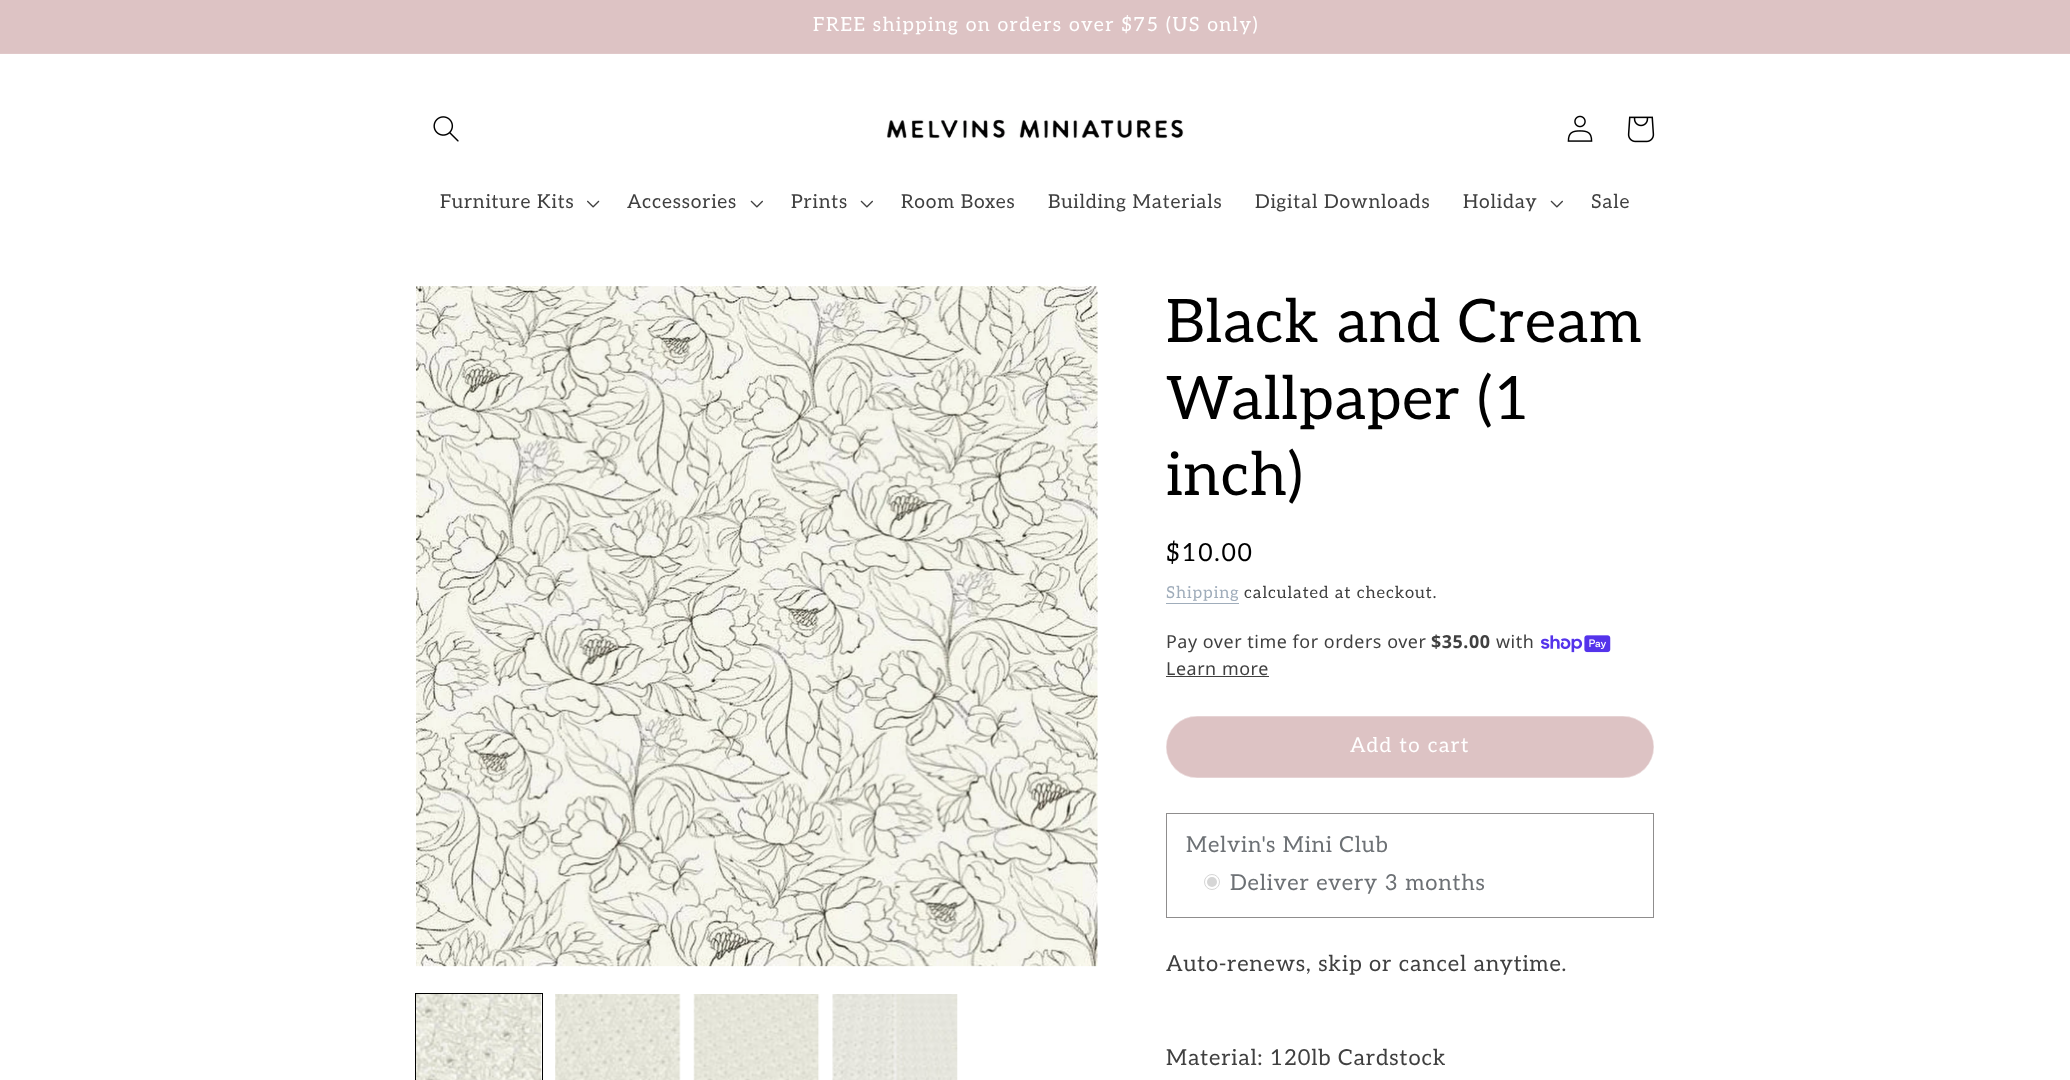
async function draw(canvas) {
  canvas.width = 2070;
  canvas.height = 1080;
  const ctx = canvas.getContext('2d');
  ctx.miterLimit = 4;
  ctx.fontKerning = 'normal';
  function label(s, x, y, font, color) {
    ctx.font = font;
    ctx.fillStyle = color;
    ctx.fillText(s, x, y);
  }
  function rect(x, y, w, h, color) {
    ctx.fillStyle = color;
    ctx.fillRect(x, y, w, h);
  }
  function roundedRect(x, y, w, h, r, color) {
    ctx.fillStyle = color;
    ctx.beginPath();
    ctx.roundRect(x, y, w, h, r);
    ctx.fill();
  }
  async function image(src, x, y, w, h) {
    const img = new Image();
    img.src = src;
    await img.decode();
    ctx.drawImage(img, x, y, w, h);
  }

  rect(0, 0, 2070, 1080, '#fff');
  rect(0, 0, 2070, 53, '#ddc3c4');
  rect(0, 53, 2070, 1, '#e0c8c9');
  ctx.letterSpacing = '1.4px';
  label('FREE shipping on orders over $75 (US only)', 813, 31, '19.5px Aleo', '#fff');
  await image('assets/img1.png', 433, 116, 26, 26);
  await image('assets/img2.png', 886, 119, 298, 20);
  await image('assets/img3.png', 1567, 115, 26, 27);
  await image('assets/img4.png', 1627, 116, 28, 27);
  ctx.letterSpacing = '0.85px';
  label('Furniture Kits', 440, 208, '19.25px Aleo', '#404040');
  await image('assets/img5.png', 587, 200, 13, 8);
  label('Accessories', 627, 208, '19.25px Aleo', '#404040');
  await image('assets/img6.png', 750, 200, 13, 8);
  label('Prints', 791, 208, '19.25px Aleo', '#404040');
  await image('assets/img6.png', 860, 200, 13, 8);
  label('Room Boxes', 901, 208, '19.25px Aleo', '#404040');
  label('Building Materials', 1048, 208, '19.25px Aleo', '#404040');
  label('Digital Downloads', 1255, 208, '19.25px Aleo', '#404040');
  label('Holiday', 1463, 208, '19.25px Aleo', '#404040');
  await image('assets/img6.png', 1550, 200, 13, 8);
  label('Sale', 1591, 208, '19.25px Aleo', '#404040');
  await image('assets/img7.png', 416, 286, 682, 681);
  ctx.strokeStyle = '#000';
  ctx.strokeRect(415.5, 993.5, 127, 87);
  await image('assets/img8.png', 416, 994, 126, 86);
  await image('assets/img9.png', 555, 994, 126, 86);
  await image('assets/img10.png', 693, 994, 127, 86);
  await image('assets/img11.png', 832, 994, 126, 86);
  ctx.letterSpacing = '0.9px';
  label('Black and Cream', 1166, 342, '60px Aleo', '#000');
  label('Wallpaper (1', 1166, 419, '60px Aleo', '#000');
  label('inch)', 1166, 495, '60px Aleo', '#000');
  ctx.letterSpacing = '1.75px';
  label('$10.00', 1166, 561, '25px Aleo', '#000');
  ctx.letterSpacing = '1px';
  label('Shipping', 1166, 598, '16.5px Aleo', '#a0adbb');
  rect(1166, 603, 73, 1, '#a0adbb');
  label('calculated at checkout.', 1244, 598, '16.5px Aleo', '#404040');
  ctx.letterSpacing = '0.55px';
  label('Pay over time for orders over', 1166, 648, '17.9px Noto Sans', '#404040');
  label('$35.00', 1431, 648, 'bold 17.9px Noto Sans', '#404040');
  label('with', 1496, 648, '17.9px Noto Sans', '#404040');
  await image('assets/img12.png', 1541, 635, 70, 18);
  label('Learn more', 1166, 675, '17.9px Noto Sans', '#404040');
  rect(1166, 676, 103, 1, '#404040');
  roundedRect(1166, 716, 488, 62, 31, '#ddc3c4');
  ctx.beginPath();
  ctx.roundRect(1166.2, 716.2, 487.6, 61.6, 30.8);
  ctx.strokeStyle = '#fff';
  ctx.lineWidth = 0.4;
  ctx.stroke();
  ctx.letterSpacing = '1.4px';
  label('Add to cart', 1350, 752, '20.5px Aleo', '#fff');
  ctx.strokeStyle = '#8f8d8d';
  ctx.lineWidth = 1;
  ctx.strokeRect(1166.5, 813.5, 487, 104);
  ctx.letterSpacing = '0.85px';
  label('Melvin\'s Mini Club', 1186, 852, '22px Aleo', '#6d7175');
  ctx.beginPath();
  ctx.arc(1212, 882, 7.5, 0, 2 * Math.PI);
  ctx.strokeStyle = '#d6d6d6';
  ctx.stroke();
  ctx.fillStyle = '#d6d6d6';
  ctx.beginPath();
  ctx.arc(1212, 882, 5, 0, 2 * Math.PI);
  ctx.fill();
  label('Deliver every 3 months', 1230, 890, '22px Aleo', '#6d7175');
  label('Auto-renews, skip or cancel anytime.', 1166, 971, '22px Aleo', '#404040');
  label('Material: 120lb Cardstock', 1166, 1065, '22px Aleo', '#404040');
}

draw(document.querySelector('canvas'));
